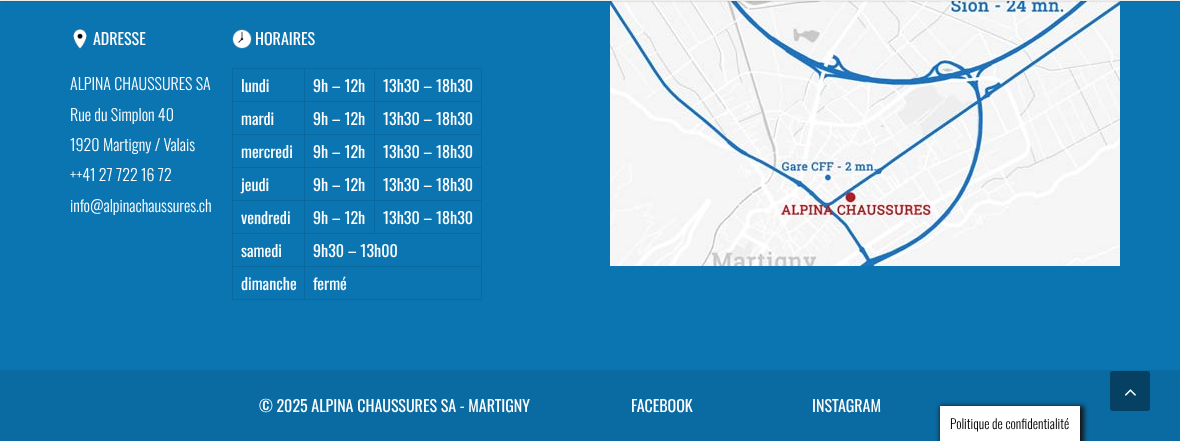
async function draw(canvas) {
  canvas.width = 1180;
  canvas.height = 441;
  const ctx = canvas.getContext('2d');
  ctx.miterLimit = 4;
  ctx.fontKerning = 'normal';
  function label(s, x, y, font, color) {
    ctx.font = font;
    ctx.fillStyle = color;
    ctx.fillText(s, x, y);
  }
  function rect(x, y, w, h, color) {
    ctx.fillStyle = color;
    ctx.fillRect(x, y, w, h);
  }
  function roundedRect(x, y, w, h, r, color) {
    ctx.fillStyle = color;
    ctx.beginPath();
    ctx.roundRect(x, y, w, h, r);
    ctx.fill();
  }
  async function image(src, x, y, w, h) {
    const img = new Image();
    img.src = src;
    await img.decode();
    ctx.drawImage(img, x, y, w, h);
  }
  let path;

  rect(0, 0, 1180, 441, '#0b75b2');
  await image('assets/img3.png', 610, 1, 510, 265);
  ctx.fillStyle = '#00000033';
  ctx.filter = 'blur(1px)';
  ctx.beginPath();
  ctx.rect(2, -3, 1176, 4);
  ctx.fill();
  ctx.filter = 'none';
  rect(0, 0, 1180, 1, '#eeede9');
  await image('assets/img1.png', 73, 29, 14, 20);
  label('ADRESSE', 93, 45, '16px Oswald', '#fff');
  label('ALPINA CHAUSSURES SA', 70, 90, '300 16px Oswald', '#fff');
  label('Rue du Simplon 40', 70, 121, '300 16px Oswald', '#fff');
  label('1920 Martigny / Valais', 70, 151, '300 16px Oswald', '#fff');
  label('++41 27 722 16 72', 70, 181, '300 16px Oswald', '#fff');
  label('info@alpinachaussures.ch', 70, 212, '300 16px Oswald', '#fff');
  await image('assets/img2.png', 232, 29, 20, 20);
  label('HORAIRES', 255, 45, '16px Oswald', '#fff');
  ctx.fillStyle = '#0a69a0';
  path = new Path2D('M232 68H482V69H233Z');
  ctx.fill(path);
  ctx.fillStyle = '#0000001a';
  path = new Path2D('M232 300V68L233 69V300Z');
  ctx.fill(path);
  ctx.fillStyle = '#0a69a0';
  path = new Path2D('M305 69V102L304 101V69Z');
  ctx.fill(path);
  ctx.fillStyle = '#0000001a';
  path = new Path2D('M305 102H233V101H304Z');
  ctx.fill(path);
  label('lundi', 241, 92, '16px Oswald', '#fff');
  ctx.fillStyle = '#0a69a0';
  path = new Path2D('M375 69V102L374 101V69Z');
  ctx.fill(path);
  ctx.fillStyle = '#0000001a';
  path = new Path2D('M375 102H305V101H374Z');
  ctx.fill(path);
  label('9h – 12h', 313, 92, '16px Oswald', '#fff');
  ctx.fillStyle = '#0a69a0';
  path = new Path2D('M482 69V102L481 101V69Z');
  ctx.fill(path);
  ctx.fillStyle = '#0000001a';
  path = new Path2D('M482 102H375V101H481Z');
  ctx.fill(path);
  label('13h30 – 18h30', 383, 92, '16px Oswald', '#fff');
  ctx.fillStyle = '#0a69a0';
  path = new Path2D('M305 102V135L304 134V102Z');
  ctx.fill(path);
  ctx.fillStyle = '#0000001a';
  path = new Path2D('M305 135H233V134H304Z');
  ctx.fill(path);
  label('mardi', 241, 125, '16px Oswald', '#fff');
  ctx.fillStyle = '#0a69a0';
  path = new Path2D('M375 102V135L374 134V102Z');
  ctx.fill(path);
  ctx.fillStyle = '#0000001a';
  path = new Path2D('M375 135H305V134H374Z');
  ctx.fill(path);
  label('9h – 12h', 313, 125, '16px Oswald', '#fff');
  ctx.fillStyle = '#0a69a0';
  path = new Path2D('M482 102V135L481 134V102Z');
  ctx.fill(path);
  ctx.fillStyle = '#0000001a';
  path = new Path2D('M482 135H375V134H481Z');
  ctx.fill(path);
  label('13h30 – 18h30', 383, 125, '16px Oswald', '#fff');
  ctx.fillStyle = '#0a69a0';
  path = new Path2D('M305 135V168L304 167V135Z');
  ctx.fill(path);
  ctx.fillStyle = '#0000001a';
  path = new Path2D('M305 168H233V167H304Z');
  ctx.fill(path);
  label('mercredi', 241, 158, '16px Oswald', '#fff');
  ctx.fillStyle = '#0a69a0';
  path = new Path2D('M375 135V168L374 167V135Z');
  ctx.fill(path);
  ctx.fillStyle = '#0000001a';
  path = new Path2D('M375 168H305V167H374Z');
  ctx.fill(path);
  label('9h – 12h', 313, 158, '16px Oswald', '#fff');
  ctx.fillStyle = '#0a69a0';
  path = new Path2D('M482 135V168L481 167V135Z');
  ctx.fill(path);
  ctx.fillStyle = '#0000001a';
  path = new Path2D('M482 168H375V167H481Z');
  ctx.fill(path);
  label('13h30 – 18h30', 383, 158, '16px Oswald', '#fff');
  ctx.fillStyle = '#0a69a0';
  path = new Path2D('M305 168V201L304 200V168Z');
  ctx.fill(path);
  ctx.fillStyle = '#0000001a';
  path = new Path2D('M305 201H233V200H304Z');
  ctx.fill(path);
  label('jeudi', 241, 191, '16px Oswald', '#fff');
  ctx.fillStyle = '#0a69a0';
  path = new Path2D('M375 168V201L374 200V168Z');
  ctx.fill(path);
  ctx.fillStyle = '#0000001a';
  path = new Path2D('M375 201H305V200H374Z');
  ctx.fill(path);
  label('9h – 12h', 313, 191, '16px Oswald', '#fff');
  ctx.fillStyle = '#0a69a0';
  path = new Path2D('M482 168V201L481 200V168Z');
  ctx.fill(path);
  ctx.fillStyle = '#0000001a';
  path = new Path2D('M482 201H375V200H481Z');
  ctx.fill(path);
  label('13h30 – 18h30', 383, 191, '16px Oswald', '#fff');
  ctx.fillStyle = '#0a69a0';
  path = new Path2D('M305 201V234L304 233V201Z');
  ctx.fill(path);
  ctx.fillStyle = '#0000001a';
  path = new Path2D('M305 234H233V233H304Z');
  ctx.fill(path);
  label('vendredi', 241, 224, '16px Oswald', '#fff');
  ctx.fillStyle = '#0a69a0';
  path = new Path2D('M375 201V234L374 233V201Z');
  ctx.fill(path);
  ctx.fillStyle = '#0000001a';
  path = new Path2D('M375 234H305V233H374Z');
  ctx.fill(path);
  label('9h – 12h', 313, 224, '16px Oswald', '#fff');
  ctx.fillStyle = '#0a69a0';
  path = new Path2D('M482 201V234L481 233V201Z');
  ctx.fill(path);
  ctx.fillStyle = '#0000001a';
  path = new Path2D('M482 234H375V233H481Z');
  ctx.fill(path);
  label('13h30 – 18h30', 383, 224, '16px Oswald', '#fff');
  ctx.fillStyle = '#0a69a0';
  path = new Path2D('M305 234V267L304 266V234Z');
  ctx.fill(path);
  ctx.fillStyle = '#0000001a';
  path = new Path2D('M305 267H233V266H304Z');
  ctx.fill(path);
  label('samedi', 241, 257, '16px Oswald', '#fff');
  ctx.fillStyle = '#0a69a0';
  path = new Path2D('M482 234V267L481 266V234Z');
  ctx.fill(path);
  ctx.fillStyle = '#0000001a';
  path = new Path2D('M482 267H305V266H481Z');
  ctx.fill(path);
  label('9h30 – 13h00', 313, 257, '16px Oswald', '#fff');
  ctx.fillStyle = '#0a69a0';
  path = new Path2D('M305 267V300L304 299V267Z');
  ctx.fill(path);
  ctx.fillStyle = '#0000001a';
  path = new Path2D('M305 300H233V299H304Z');
  ctx.fill(path);
  label('dimanche', 241, 290, '16px Oswald', '#fff');
  ctx.fillStyle = '#0a69a0';
  path = new Path2D('M482 267V300L481 299V267Z');
  ctx.fill(path);
  ctx.fillStyle = '#0000001a';
  path = new Path2D('M482 300H305V299H481Z');
  ctx.fill(path);
  label('fermé', 313, 290, '16px Oswald', '#fff');
  rect(0, 370, 1180, 71, '#0a6ba3');
  label('© 2025 ALPINA CHAUSSURES SA - MARTIGNY', 259, 412, '16px Oswald', '#fff');
  label('FACEBOOK', 631, 412, '16px Oswald', '#fff');
  label('INSTAGRAM', 812, 412, '16px Oswald', '#fff');
  roundedRect(1110, 371, 40, 40, 3, '#064062');
  await image('assets/img4.png', 1124, 389, 12, 7);
  ctx.fillStyle = '#161616';
  ctx.filter = 'blur(2.5px)';
  ctx.beginPath();
  ctx.rect(940, 406, 144, 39);
  ctx.fill();
  ctx.filter = 'none';
  rect(940, 406, 140, 35, '#fff');
  label('Politique de confidentialité', 950, 429, '300 13.25px Oswald', '#000');
}

draw(document.querySelector('canvas'));
